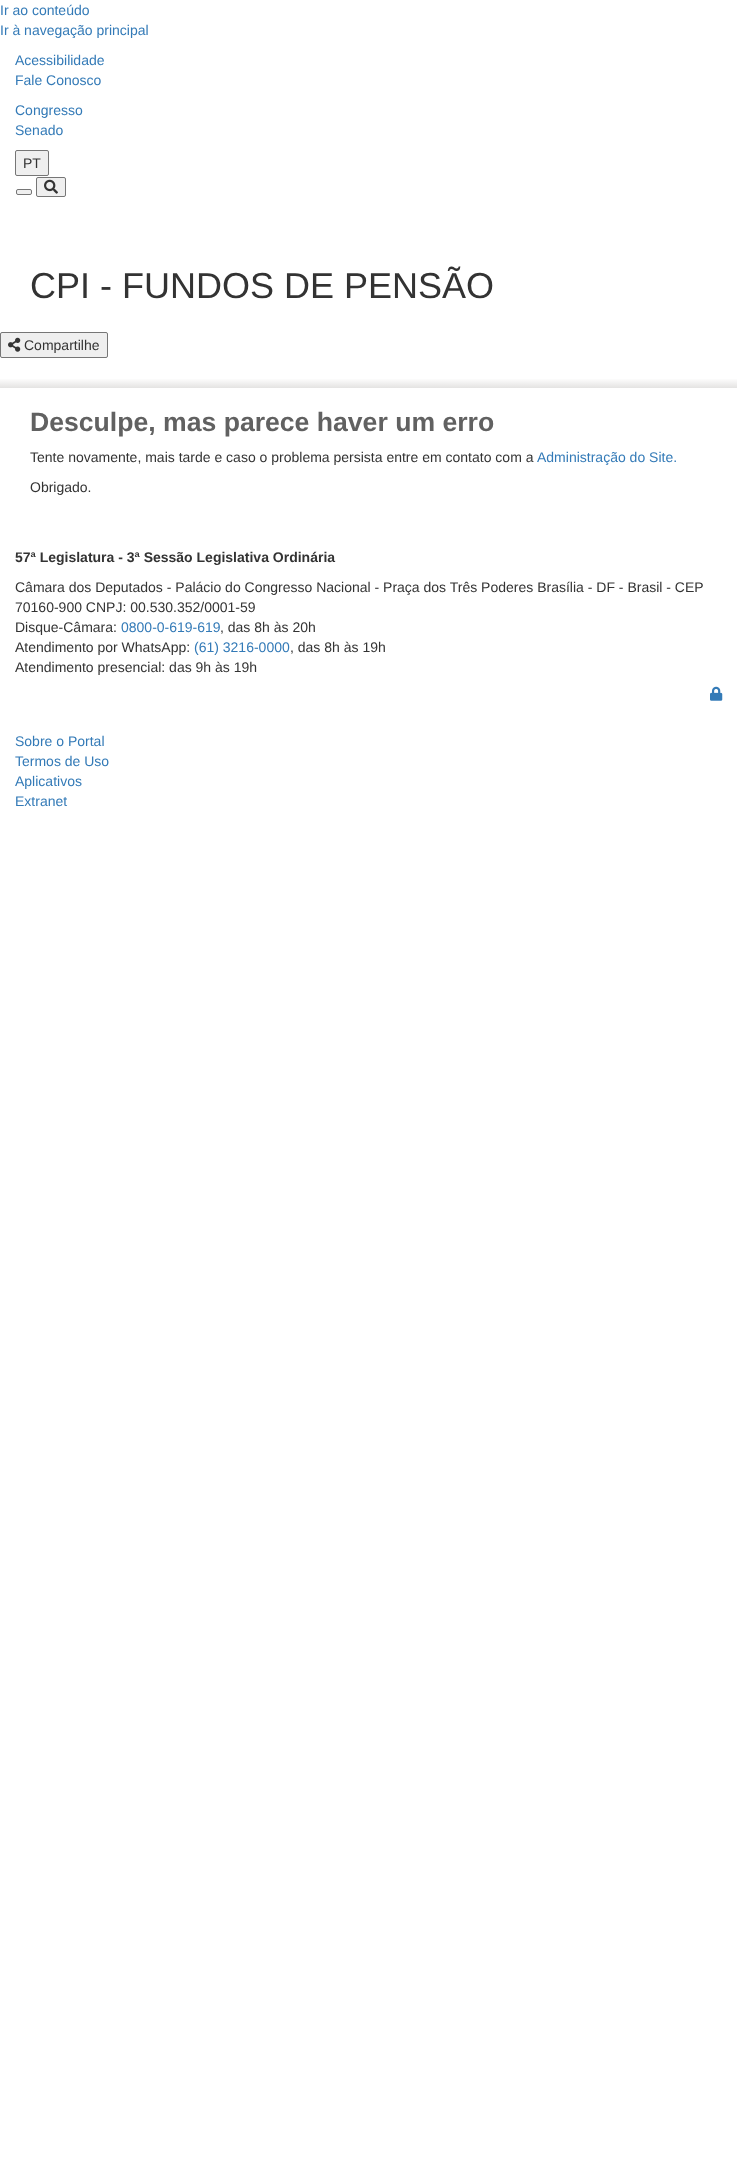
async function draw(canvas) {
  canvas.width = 737;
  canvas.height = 2182;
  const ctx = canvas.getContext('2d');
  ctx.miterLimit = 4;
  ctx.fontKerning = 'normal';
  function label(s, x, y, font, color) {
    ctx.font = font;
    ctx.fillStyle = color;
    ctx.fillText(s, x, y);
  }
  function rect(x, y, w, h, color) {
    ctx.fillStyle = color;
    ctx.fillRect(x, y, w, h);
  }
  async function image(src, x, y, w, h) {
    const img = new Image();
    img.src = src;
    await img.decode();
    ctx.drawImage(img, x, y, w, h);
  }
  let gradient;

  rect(0, 0, 737, 2182, '#fff');
  label('Ir ao conteúdo', 0, 15, '14px Liberation Sans', '#337ab7');
  label('Ir à navegação principal', 0, 35, '14px Liberation Sans', '#337ab7');
  label('Acessibilidade', 15, 65, '14px Liberation Sans', '#337ab7');
  label('Fale Conosco', 15, 85, '14px Liberation Sans', '#337ab7');
  label('Congresso', 15, 115, '14px Liberation Sans', '#337ab7');
  label('Senado', 15, 135, '14px Liberation Sans', '#337ab7');
  ctx.fillStyle = '#efefef';
  ctx.beginPath();
  ctx.roundRect(15.5, 150.5, 33, 25, 1.5);
  ctx.fill();
  ctx.strokeStyle = '#767676';
  ctx.stroke();
  label('PT', 23, 168, '14px Liberation Sans', '#333');
  ctx.fillStyle = '#efefef';
  ctx.beginPath();
  ctx.roundRect(16.5, 189.5, 15, 5, 1.5);
  ctx.fill();
  ctx.stroke();
  ctx.beginPath();
  ctx.roundRect(36.5, 177.5, 29, 19, 1.5);
  ctx.fill();
  ctx.stroke();
  await image('assets/img1.png', 44, 179, 14, 15);
  label('CPI - FUNDOS DE PENSÃO', 30, 298, '36px Liberation Sans', '#333');
  ctx.fillStyle = '#efefef';
  ctx.beginPath();
  ctx.roundRect(0.5, 332.5, 107, 25, 1.5);
  ctx.fill();
  ctx.stroke();
  await image('assets/img2.png', 8, 337, 13, 15);
  label('Compartilhe', 24, 350, '14px Liberation Sans', '#333');
  gradient = ctx.createLinearGradient(369, 378, 369, 388);
  gradient.addColorStop(0, '#fff');
  gradient.addColorStop(1, '#e4e3e2');
  ctx.fillStyle = gradient;
  ctx.fillRect(0, 379, 737, 9);
  label('Desculpe, mas parece haver um erro', 30, 431, 'bold 26.6px Liberation Sans', '#616161');
  label('Tente novamente, mais tarde e caso o problema persista entre em contato com a', 30, 462, '14px Liberation Sans', '#333');
  label('Administração do Site.', 537, 462, '14px Liberation Sans', '#337ab7');
  label('Obrigado.', 30, 492, '14px Liberation Sans', '#333');
  label('57ª Legislatura - 3ª Sessão Legislativa Ordinária', 15, 562, 'bold 14px Liberation Sans', '#333');
  label('Câmara dos Deputados - Palácio do Congresso Nacional - Praça dos Três Poderes Brasília - DF - Brasil - CEP', 15, 592, '14px Liberation Sans', '#333');
  label('70160-900 CNPJ: 00.530.352/0001-59', 15, 612, '14px Liberation Sans', '#333');
  label('Disque-Câmara:', 15, 632, '14px Liberation Sans', '#333');
  label('0800-0-619-619', 121, 632, '14px Liberation Sans', '#337ab7');
  label(', das 8h às 20h', 220, 632, '14px Liberation Sans', '#333');
  label('Atendimento por WhatsApp:', 15, 652, '14px Liberation Sans', '#333');
  label('(61) 3216-0000', 194, 652, '14px Liberation Sans', '#337ab7');
  label(', das 8h às 19h', 290, 652, '14px Liberation Sans', '#333');
  label('Atendimento presencial: das 9h às 19h', 15, 672, '14px Liberation Sans', '#333');
  await image('assets/img3.png', 710, 686, 13, 15);
  label('Sobre o Portal', 15, 746, '14px Liberation Sans', '#337ab7');
  label('Termos de Uso', 15, 766, '14px Liberation Sans', '#337ab7');
  label('Aplicativos', 15, 786, '14px Liberation Sans', '#337ab7');
  label('Extranet', 15, 806, '14px Liberation Sans', '#337ab7');
}

draw(document.querySelector('canvas'));
